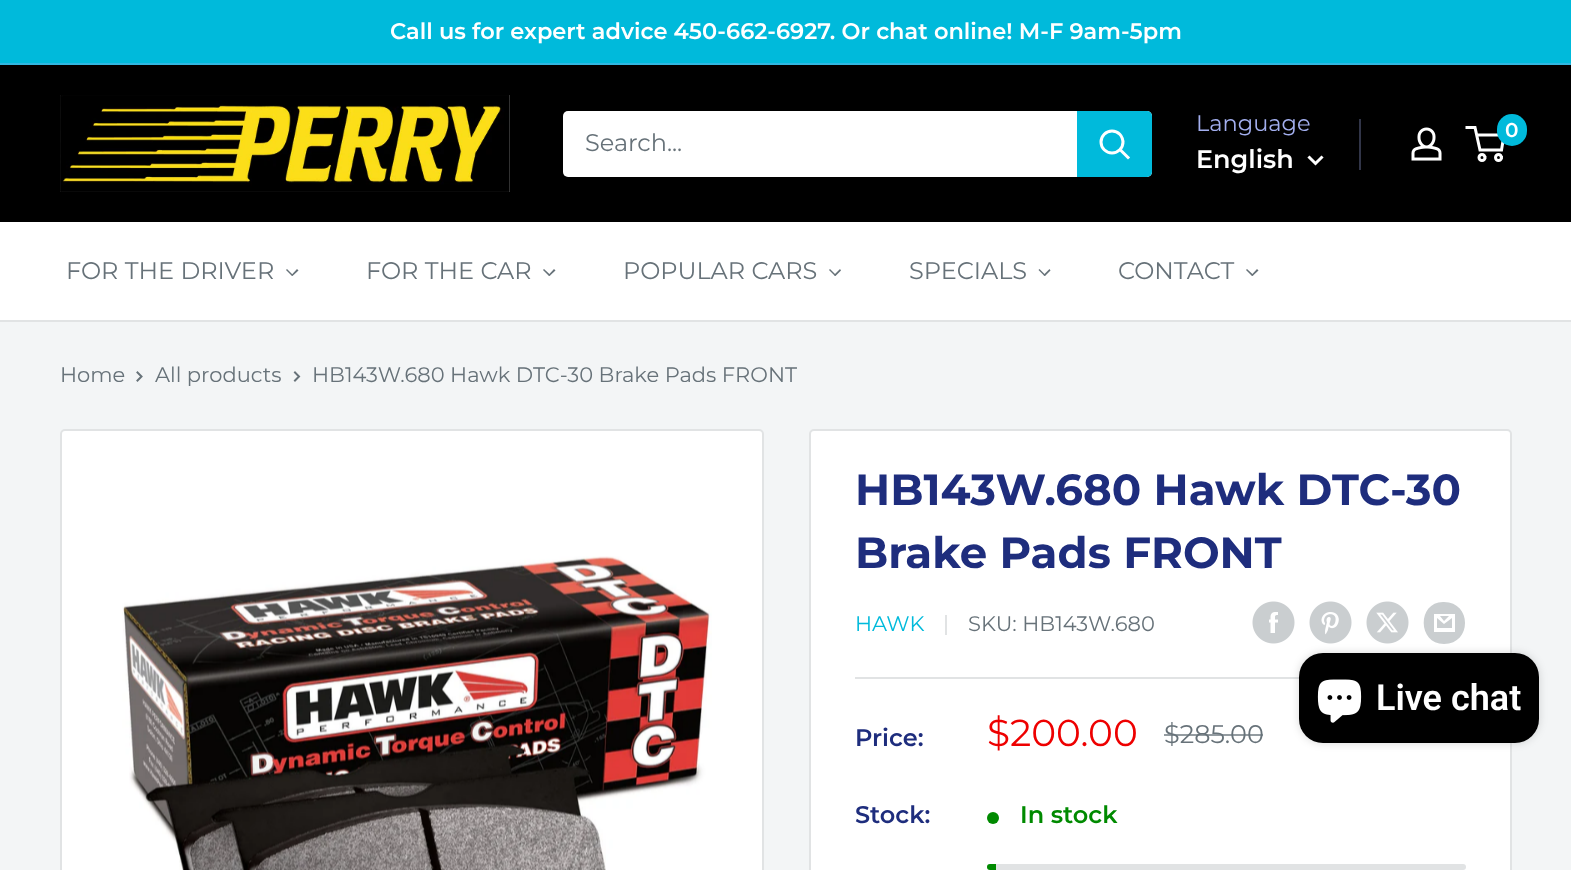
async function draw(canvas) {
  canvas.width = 1571;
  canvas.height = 870;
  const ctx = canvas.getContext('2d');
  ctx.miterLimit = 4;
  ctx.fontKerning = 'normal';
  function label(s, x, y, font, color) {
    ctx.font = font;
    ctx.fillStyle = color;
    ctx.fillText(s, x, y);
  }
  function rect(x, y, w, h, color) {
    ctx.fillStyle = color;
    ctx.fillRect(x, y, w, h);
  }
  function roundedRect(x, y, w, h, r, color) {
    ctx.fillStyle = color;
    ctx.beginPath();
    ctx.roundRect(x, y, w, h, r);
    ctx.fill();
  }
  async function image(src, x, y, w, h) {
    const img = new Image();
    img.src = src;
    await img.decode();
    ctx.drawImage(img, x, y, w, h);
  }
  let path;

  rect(0, 0, 1571, 870, '#f3f5f6');
  rect(0, 0, 1571, 63, '#00badb');
  rect(0, 63, 1571, 2, '#31b7e1');
  label('Call us for expert advice 450-662-6927. Or chat online! M-F 9am-5pm', 390, 39, '600 22.5px Montserrat', '#fff');
  rect(0, 65, 1571, 157, '#000');
  await image('assets/img1.png', 60, 95, 450, 97);
  roundedRect(563, 111, 589, 66, 5, '#fff');
  label('Search...', 585, 151, '24px Montserrat', '#677279');
  ctx.fillStyle = '#00badb';
  ctx.beginPath();
  ctx.roundRect(1077, 111, 75, 66, [0, 5, 5, 0]);
  ctx.fill();
  path = new Path2D('M1128 157.5L1120.5 150');
  ctx.strokeStyle = '#fff';
  ctx.lineWidth = 3;
  ctx.lineCap = 'square';
  ctx.stroke(path);
  ctx.beginPath();
  ctx.arc(1112, 142, 11, 0, 2 * Math.PI);
  ctx.stroke();
  label('Language', 1196, 131, '22.5px Montserrat', '#a3afef');
  label('English', 1196, 168, '600 25.5px Montserrat', '#fff');
  path = new Path2D('M1321.5 157.5L1315.5 163.5L1309.5 157.5');
  ctx.stroke(path);
  rect(1359, 119, 2, 51, '#313548');
  await image('assets/img2.png', 1411, 127, 31, 34);
  ctx.beginPath();
  ctx.arc(1482, 157.5, 3, 0, 2 * Math.PI);
  ctx.stroke();
  ctx.beginPath();
  ctx.arc(1498.5, 157.5, 3, 0, 2 * Math.PI);
  ctx.stroke();
  path = new Path2D('M1476.5 135H1504L1501.5 150H1480L1475 127.5H1465.5');
  ctx.lineCap = 'butt';
  ctx.stroke(path);
  roundedRect(1497, 114, 30, 32, 15, '#00badb');
  label('0', 1505, 137, '600 20px Montserrat', '#fff');
  rect(0, 222, 1571, 98, '#fff');
  rect(0, 320, 1571, 2, '#e1e3e4');
  label('FOR THE DRIVER', 66, 279, '24px Montserrat', '#677279');
  path = new Path2D('M297 269L298.5 270.5L292.5 276L291.5 275Z');
  ctx.fill(path);
  path = new Path2D('M287 269L293 275L292 276L286 270Z');
  ctx.fill(path);
  label('FOR THE CAR', 366, 279, '24px Montserrat', '#677279');
  path = new Path2D('M554 269L555.5 270.5L549.5 276L548.5 275Z');
  ctx.fill(path);
  path = new Path2D('M544 269L550.5 275L549 276L543 270Z');
  ctx.fill(path);
  label('POPULAR CARS', 623, 279, '24px Montserrat', '#677279');
  path = new Path2D('M840 269L841 270.5L835.5 276L834 275Z');
  ctx.fill(path);
  path = new Path2D('M830 269L836 275L835 276L829 270Z');
  ctx.fill(path);
  label('SPECIALS', 909, 279, '24px Montserrat', '#677279');
  path = new Path2D('M1049.5 269L1050.5 270.5L1045 276L1043.5 275Z');
  ctx.fill(path);
  path = new Path2D('M1039.5 269L1045.5 275L1044.5 276L1038.5 270Z');
  ctx.fill(path);
  label('CONTACT', 1118, 279, '24px Montserrat', '#677279');
  path = new Path2D('M1257 269L1258.5 270.5L1252.5 276L1251.5 275Z');
  ctx.fill(path);
  path = new Path2D('M1247 269L1253.5 275L1252 276L1246 270Z');
  ctx.fill(path);
  label('Home', 60, 382, '21px Montserrat', '#677279');
  path = new Path2D('M137.5 372.5L141.5 376.5L137.5 380.5');
  ctx.strokeStyle = '#677279';
  ctx.lineWidth = 2;
  ctx.lineCap = 'square';
  ctx.stroke(path);
  label('All products', 155, 382, '21px Montserrat', '#677279');
  path = new Path2D('M295 372.5L299 376.5L295 380.5');
  ctx.stroke(path);
  label('HB143W.680 Hawk DTC-30 Brake Pads FRONT', 312, 382, '21px Montserrat', '#677279');
  ctx.fillStyle = '#fff';
  ctx.beginPath();
  ctx.roundRect(61, 430, 702, 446, 4);
  ctx.fill();
  ctx.strokeStyle = '#e1e3e4';
  ctx.stroke();
  await image('assets/img3.png', 122, 556, 590, 314);
  await image('assets/img4.png', 124, 557, 584, 313);
  ctx.beginPath();
  ctx.roundRect(810, 430, 701, 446, 4);
  ctx.fill();
  ctx.stroke();
  label('HB143W.680 Hawk DTC-30', 855, 505, 'bold 43.5px Montserrat', '#1e2d7d');
  label('Brake Pads FRONT', 855, 568, 'bold 43.5px Montserrat', '#1e2d7d');
  label('HAWK', 855, 631, '21px Montserrat', '#00badb');
  rect(945, 615, 2, 20, '#e1e3e4');
  label('SKU: HB143W.680', 968, 631, '21px Montserrat', '#677279');
  await image('assets/img5.png', 1252, 601, 43, 43);
  await image('assets/img6.png', 1309, 601, 43, 43);
  await image('assets/img7.png', 1366, 601, 43, 43);
  ctx.fillStyle = '#caced0';
  path = new Path2D('M1444 644C1417 644 1417 601 1444 602C1472 602 1472 644 1444 644ZM1440 616H1449L1444 621ZM1452 618V628H1437V618L1444 624ZM1455 614H1434V632H1455Z');
  ctx.fill(path);
  rect(855, 677, 444, 2, '#e1e3e4');
  label('Price:', 855, 746, '600 24px Montserrat', '#1e2d7d');
  label('$200.00', 987, 746, '37.5px Montserrat', '#e00');
  label('$285.00', 1164, 743, '25.5px Montserrat', '#677279');
  rect(1164, 734, 99, 2, '#677279b3');
  label('Stock:', 855, 823, '600 24px Montserrat', '#1e2d7d');
  ctx.fillStyle = '#008a00';
  ctx.beginPath();
  ctx.arc(993, 818, 6, 0, 2 * Math.PI);
  ctx.fill();
  label('In stock', 1020, 823, '600 24px Montserrat', '#008a00');
  roundedRect(987, 864, 479, 6, 3, '#e1e3e4');
  ctx.fillStyle = '#008a00';
  ctx.beginPath();
  ctx.roundRect(987, 864, 9, 6, [3, 0, 0, 3]);
  ctx.fill();
  ctx.fillStyle = '#00000026';
  ctx.filter = 'blur(4px)';
  ctx.beginPath();
  ctx.roundRect(1299, 653, 240, 90, 24);
  ctx.fill();
  ctx.filter = 'none';
  roundedRect(1299, 653, 240, 90, 24, '#000');
  await image('assets/img8.png', 1317, 679, 45, 44);
  label('Live chat', 1376, 710, '600 36px Roboto', '#fff');
}

draw(document.querySelector('canvas'));
